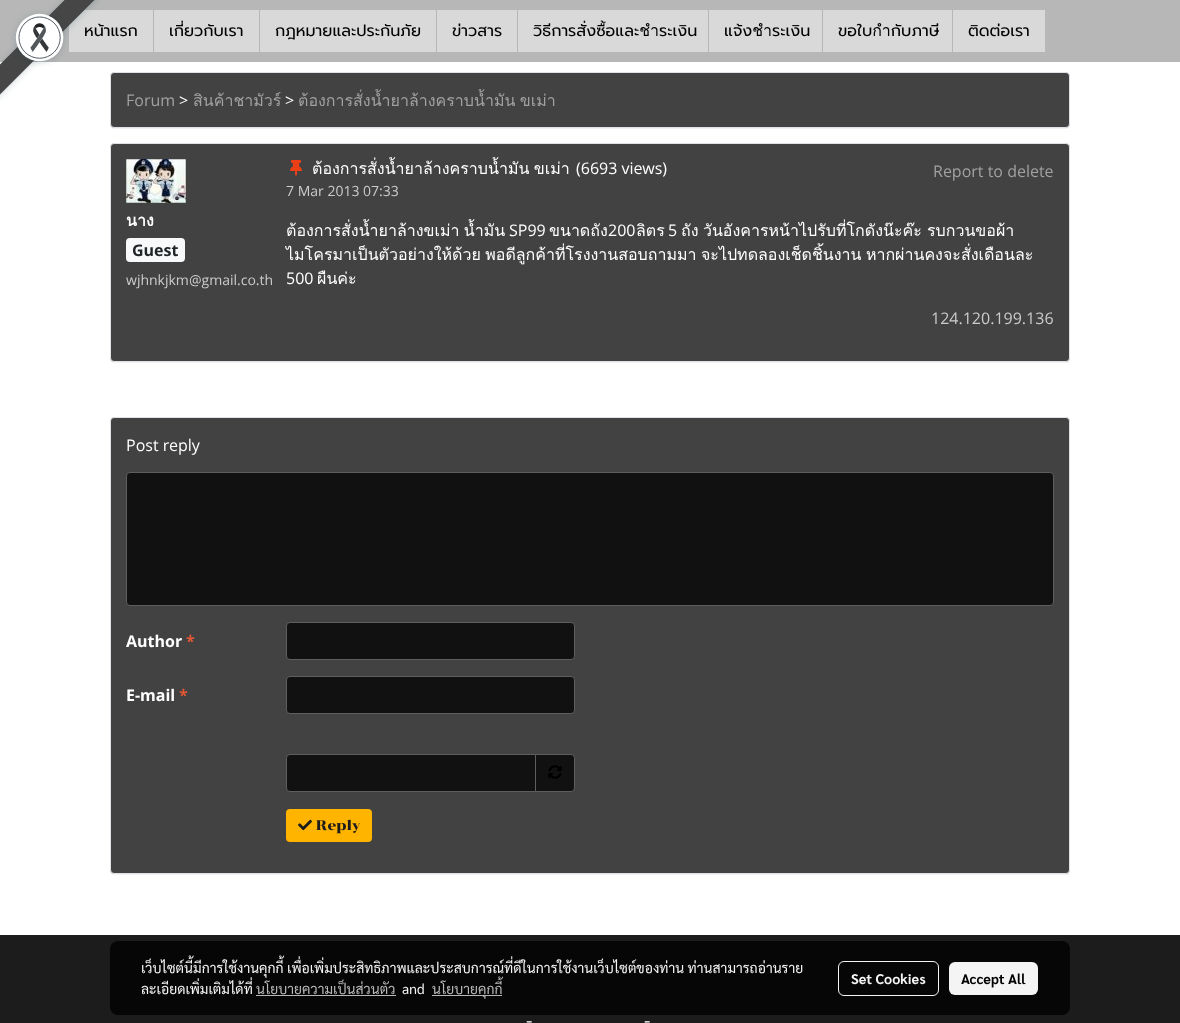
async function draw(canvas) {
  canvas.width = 1180;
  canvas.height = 1023;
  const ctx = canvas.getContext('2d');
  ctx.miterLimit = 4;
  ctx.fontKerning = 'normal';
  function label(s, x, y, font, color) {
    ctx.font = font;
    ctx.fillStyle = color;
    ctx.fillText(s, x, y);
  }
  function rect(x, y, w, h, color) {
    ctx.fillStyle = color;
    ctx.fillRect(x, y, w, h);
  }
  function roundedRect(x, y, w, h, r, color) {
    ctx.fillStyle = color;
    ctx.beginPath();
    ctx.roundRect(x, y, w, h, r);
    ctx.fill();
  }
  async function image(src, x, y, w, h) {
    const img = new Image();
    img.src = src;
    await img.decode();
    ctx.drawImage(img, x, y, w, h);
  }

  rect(0, 0, 1180, 1023, '#fff');
  rect(0, 0, 1180, 62, '#b7b7b7');
  rect(69, 10, 84, 42, '#d9d9d9');
  label('หน้าแรก', 84, 36, '16px Prompt', '#000');
  await image('assets/img1.png', 0, 0, 101, 101);
  rect(154, 10, 105, 42, '#d9d9d9');
  label('เกี่ยวกับเรา', 169, 36, '16px Prompt', '#000');
  rect(260, 10, 176, 42, '#d9d9d9');
  label('กฎหมายและประกันภัย', 275, 36, '16px Prompt', '#000');
  rect(437, 10, 80, 42, '#d9d9d9');
  label('ข่าวสาร', 452, 36, '16px Prompt', '#000');
  rect(518, 10, 190, 42, '#d9d9d9');
  label('วิธีการสั่งซื้อและชำระเงิน', 533, 36, '16px Prompt', '#000');
  rect(709, 10, 113, 42, '#d9d9d9');
  label('แจ้งชำระเงิน', 724, 36, '16px Prompt', '#000');
  rect(823, 10, 129, 42, '#d9d9d9');
  label('ขอใบกำกับภาษี', 838, 36, '16px Prompt', '#000');
  rect(953, 10, 92, 42, '#d9d9d9');
  label('ติดต่อเรา', 968, 36, '16px Prompt', '#000');
  ctx.fillStyle = '#0000000d';
  ctx.filter = 'blur(0.5px)';
  ctx.beginPath();
  ctx.roundRect(110, 73, 960, 56, 4);
  ctx.fill();
  ctx.filter = 'none';
  ctx.fillStyle = '#424242';
  ctx.beginPath();
  ctx.roundRect(110.5, 72.5, 959, 55, 3.5);
  ctx.fill();
  ctx.strokeStyle = '#dee2e6';
  ctx.stroke();
  label('Forum', 126, 106, '16px Open Sans', '#a1a1a1');
  label('>', 179, 106, '16px Open Sans', '#fff');
  label('สินค้าชามัวร์', 193, 106, '16px Loma', '#a1a1a1');
  label('>', 285, 106, '16px Open Sans', '#fff');
  ctx.wordSpacing = '-1px';
  label('ต้องการสั่งน้ำยาล้างคราบน้ำมัน ขเม่า', 298, 106, '16px Loma', '#a1a1a1');
  ctx.fillStyle = '#0000000d';
  ctx.filter = 'blur(0.5px)';
  ctx.beginPath();
  ctx.roundRect(110, 144, 960, 219, 4);
  ctx.fill();
  ctx.filter = 'none';
  ctx.fillStyle = '#424242';
  ctx.beginPath();
  ctx.roundRect(110.5, 143.5, 959, 218, 3.5);
  ctx.fill();
  ctx.stroke();
  await image('assets/img2.png', 126, 159, 60, 44);
  ctx.wordSpacing = '0px';
  label('นาง', 126, 226, 'bold 16px Loma', '#fff');
  roundedRect(126, 238, 59, 24, 4, '#f8f9fa');
  label('Guest', 132, 256, 'bold 16px Open Sans', '#212529');
  label('wjhnkjkm@gmail.co.th', 126, 285, '14px Open Sans', '#cbcbcb');
  await image('assets/img3.png', 290, 160, 12, 16);
  ctx.wordSpacing = '-1px';
  label('ต้องการสั่งน้ำยาล้างคราบน้ำมัน ขเม่า', 312, 174, '16px Loma', '#fff');
  ctx.wordSpacing = '0px';
  label('(6693 views)', 576, 174, '16px Open Sans', '#fff');
  label('7 Mar 2013 07:33', 286, 196, '14px Open Sans', '#cbcbcb');
  label('Report to delete', 933, 177, '16px Open Sans', '#a1a1a1');
  ctx.wordSpacing = '-1px';
  label('ต้องการสั่งน้ำยาล้างขเม่า น้ำมัน', 286, 236, '16px Loma', '#fff');
  ctx.wordSpacing = '0px';
  label('SP99', 509, 236, '16px Open Sans', '#fff');
  label('ขนาดถัง', 549, 236, '16px Loma', '#fff');
  label('200', 608, 236, '16px Open Sans', '#fff');
  label('ลิตร', 636, 236, '16px Loma', '#fff');
  label('5', 668, 236, '16px Open Sans', '#fff');
  ctx.wordSpacing = '-1px';
  label('ถัง วันอังคารหน้าไปรับที่โกดังน๊ะค๊ะ', 681, 236, '16px Loma', '#fff');
  ctx.wordSpacing = '0px';
  label('รบกวนขอผ้า', 927, 236, '16px Loma', '#fff');
  ctx.wordSpacing = '-1px';
  label('ไมโครมาเป็นตัวอย่างให้ด้วย พอดีลูกค้าที่โรงงานสอบถามมา จะไปทดลองเช็ดชิ้นงาน หากผ่านคงจะสั่งเดือนละ', 286, 260, '16px Loma', '#fff');
  ctx.wordSpacing = '0px';
  label('500', 286, 284, '16px Open Sans', '#fff');
  label('ผืนค่ะ', 317, 284, '16px Loma', '#fff');
  label('124.120.199.136', 931, 324, '16px Open Sans', '#cbcbcb');
  ctx.fillStyle = '#0000000d';
  ctx.filter = 'blur(0.5px)';
  ctx.beginPath();
  ctx.roundRect(110, 418, 960, 457, 4);
  ctx.fill();
  ctx.filter = 'none';
  ctx.fillStyle = '#424242';
  ctx.beginPath();
  ctx.roundRect(110.5, 417.5, 959, 456, 3.5);
  ctx.fill();
  ctx.stroke();
  label('Post reply', 126, 451, '16px Open Sans', '#fff');
  ctx.fillStyle = '#111';
  ctx.beginPath();
  ctx.roundRect(126.5, 472.5, 927, 133, 3.5);
  ctx.fill();
  ctx.strokeStyle = '#5e5e5e';
  ctx.stroke();
  label('Author', 126, 647, 'bold 16px Open Sans', '#fff');
  label('*', 186, 647, 'bold 16px Open Sans', '#e45735');
  ctx.fillStyle = '#111';
  ctx.beginPath();
  ctx.roundRect(286.5, 622.5, 288, 37, 3.5);
  ctx.fill();
  ctx.stroke();
  label('E-mail', 126, 701, 'bold 16px Open Sans', '#fff');
  label('*', 179, 701, 'bold 16px Open Sans', '#e45735');
  ctx.fillStyle = '#111';
  ctx.beginPath();
  ctx.roundRect(286.5, 676.5, 288, 37, 3.5);
  ctx.fill();
  ctx.stroke();
  ctx.beginPath();
  ctx.roundRect(286.5, 754.5, 249, 37, [3.5, 0, 0, 3.5]);
  ctx.fill();
  ctx.stroke();
  ctx.beginPath();
  ctx.roundRect(535.5, 754.5, 39, 37, [0, 3.5, 3.5, 0]);
  ctx.fill();
  ctx.stroke();
  await image('assets/img4.png', 548, 765, 14, 14);
  roundedRect(286, 809, 86, 33, 4, '#ffb400');
  await image('assets/img5.png', 298, 819, 14, 12);
  label('Reply', 316, 830, '14px Chonburi', '#1c1c1c');
  rect(0, 935, 1180, 88, '#1c1c1c');
  label('-', 526, 1027, '17px Pridi', '#fff');
  label('-', 644, 1027, '17px Pridi', '#fff');
  roundedRect(110, 941, 960, 74, 8, '#000000c2');
  label('เว็บไซต์นี้มีการใช้งานคุกกี้ เพื่อเพิ่มประสิทธิภาพและประสบการณ์ที่ดีในการใช้งานเว็บไซต์ของท่าน ท่านสามารถอ่านราย', 141, 973, '14px Sarabun', '#f4f4f4');
  label('ละเอียดเพิ่มเติมได้ที่', 141, 994, '14px Sarabun', '#f4f4f4');
  label('นโยบายความเป็นส่วนตัว', 256, 994, '14px Sarabun', '#b9b9b9');
  rect(256, 995, 140, 1, '#c2c2c2f2');
  label('and', 402, 994, '14px Sarabun', '#f4f4f4');
  rect(432, 995, 70, 1, '#c2c2c2f2');
  label('นโยบายคุกกี้', 432, 994, '14px Sarabun', '#b9b9b9');
  ctx.beginPath();
  ctx.roundRect(838.5, 961.5, 100, 34, 5.5);
  ctx.strokeStyle = '#f4f4f4';
  ctx.stroke();
  label('Set Cookies', 851, 984, 'bold 14px Sarabun', '#f4f4f4');
  roundedRect(949, 962, 89, 33, 6, '#f4f4f4');
  label('Accept All', 961, 984, 'bold 14px Sarabun', '#000');
}

draw(document.querySelector('canvas'));
